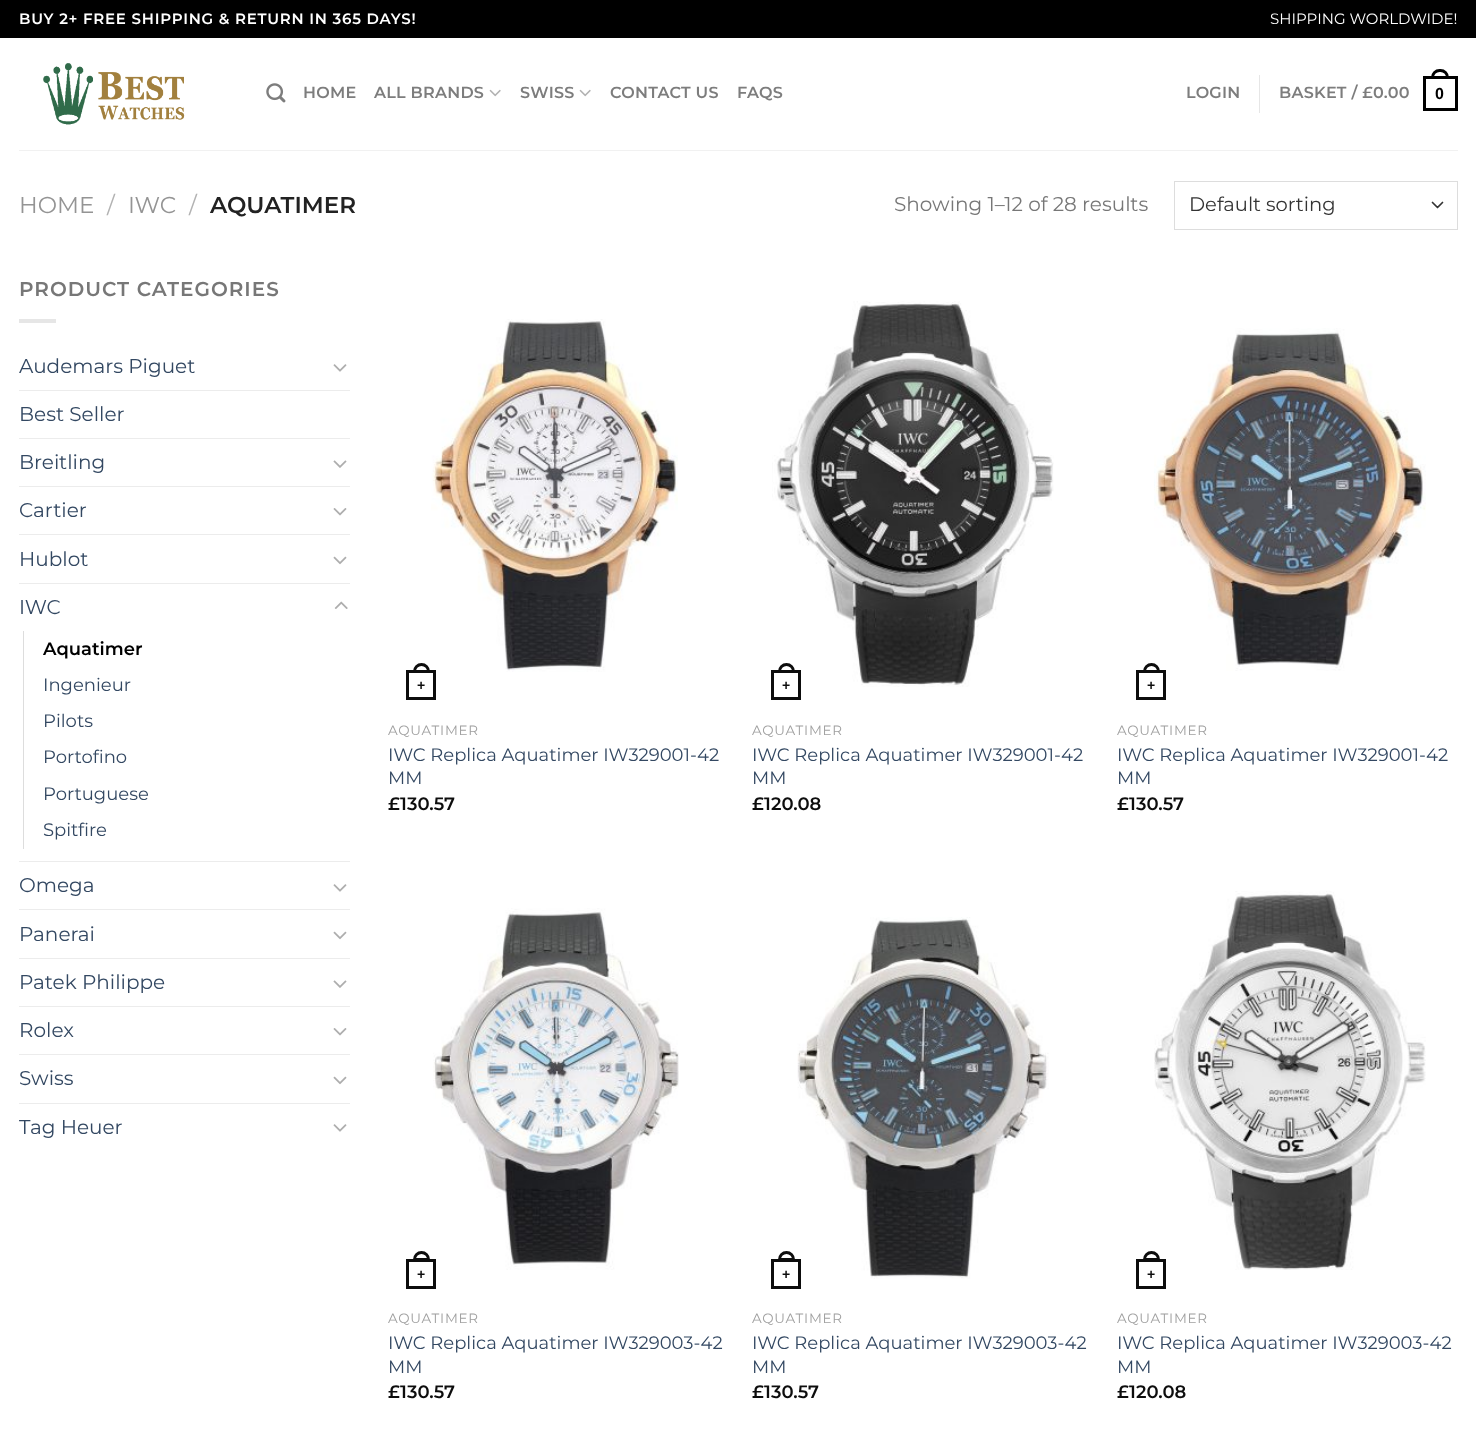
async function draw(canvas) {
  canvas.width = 1476;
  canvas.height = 1439;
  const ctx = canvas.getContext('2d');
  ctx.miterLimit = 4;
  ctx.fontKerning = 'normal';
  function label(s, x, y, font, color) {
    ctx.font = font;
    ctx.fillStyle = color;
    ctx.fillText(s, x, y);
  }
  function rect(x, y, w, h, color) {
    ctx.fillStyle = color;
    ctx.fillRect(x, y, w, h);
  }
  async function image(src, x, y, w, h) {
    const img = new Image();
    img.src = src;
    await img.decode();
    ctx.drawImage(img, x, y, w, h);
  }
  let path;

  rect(0, 0, 1476, 1439, '#fff');
  rect(0, 0, 1476, 38, '#000');
  ctx.letterSpacing = '0.75px';
  label('BUY 2+ FREE SHIPPING & RETURN IN 365 DAYS!', 19, 24, '600 15px Montserrat', '#fff');
  ctx.letterSpacing = '0px';
  label('SHIPPING WORLDWIDE!', 1270, 24, '15px Montserrat', '#fff');
  await image('assets/img1.png', 43, 63, 142, 62);
  await image('assets/img2.png', 266, 83, 20, 20);
  ctx.letterSpacing = '0.25px';
  label('HOME', 303, 98, '600 16px Montserrat', '#7d7d7d');
  label('ALL BRANDS', 374, 98, '600 16px Montserrat', '#7d7d7d');
  await image('assets/img3.png', 489, 89, 12, 8);
  label('SWISS', 520, 98, '600 16px Montserrat', '#7d7d7d');
  await image('assets/img3.png', 579, 89, 12, 8);
  label('CONTACT US', 610, 98, '600 16px Montserrat', '#7d7d7d');
  label('FAQS', 737, 98, '600 16px Montserrat', '#7d7d7d');
  label('LOGIN', 1186, 98, '600 16px Montserrat', '#7d7d7d');
  rect(1259, 75, 1, 38, '#e6e6e6');
  label('BASKET / £', 1279, 98, '600 16px Montserrat', '#7d7d7d');
  label('0.00', 1373, 98, '600 16px Montserrat', '#7d7d7d');
  ctx.strokeStyle = '#000';
  ctx.lineWidth = 3;
  ctx.strokeRect(1424.5, 77.5, 32, 32);
  ctx.beginPath();
  ctx.roundRect(1432.5, 70.5, 15, 7, [7.5, 7.5, 0, 0]);
  ctx.stroke();
  label('0', 1435, 99, 'bold 16px Liberation Sans', '#000');
  rect(19, 150, 1439, 1, '#f1f1f1');
  ctx.letterSpacing = '0px';
  label('HOME', 19, 213, '23px Montserrat', '#949494');
  label('/', 107, 213, '23px Montserrat', '#b2b2b2');
  label('IWC', 128, 213, '23px Montserrat', '#949494');
  label('/', 189, 213, '23px Montserrat', '#b2b2b2');
  label('AQUATIMER', 210, 213, '600 23px Montserrat', '#222');
  label('Showing 1–12 of 28 results', 894, 211, '20px Montserrat', '#777');
  path = new Path2D('M1432.5 202.5L1437.5 207.5L1442.5 202.5');
  ctx.strokeStyle = '#333';
  ctx.lineWidth = 1.7;
  ctx.lineCap = 'round';
  ctx.lineJoin = 'round';
  ctx.stroke(path);
  ctx.strokeStyle = '#ddd';
  ctx.lineWidth = 1;
  ctx.lineJoin = 'miter';
  ctx.strokeRect(1174.5, 181.5, 283, 48);
  label('Default sorting', 1189, 211, '19.5px Montserrat', '#333');
  ctx.letterSpacing = '1px';
  label('PRODUCT CATEGORIES', 19, 296, '600 20px Montserrat', '#777');
  rect(19, 319, 37, 4, '#e6e6e6');
  ctx.letterSpacing = '0px';
  label('Audemars Piguet', 19, 373, '20px Montserrat', '#334862');
  await image('assets/img4.png', 333, 364, 14, 8);
  rect(19, 390, 331, 1, '#ececec');
  label('Best Seller', 19, 421, '20px Montserrat', '#334862');
  rect(19, 438, 331, 1, '#ececec');
  label('Breitling', 19, 469, '20px Montserrat', '#334862');
  await image('assets/img5.png', 333, 460, 14, 8);
  rect(19, 486, 331, 1, '#ececec');
  label('Cartier', 19, 517, '20px Montserrat', '#334862');
  await image('assets/img6.png', 333, 508, 14, 8);
  rect(19, 534, 331, 1, '#ececec');
  label('Hublot', 19, 566, '20px Montserrat', '#334862');
  await image('assets/img7.png', 333, 556, 14, 9);
  rect(19, 583, 331, 1, '#ececec');
  label('IWC', 19, 614, '20px Montserrat', '#334862');
  await image('assets/img8.png', 334, 601, 14, 8);
  rect(23, 631, 1, 218, '#ddd');
  label('Aquatimer', 43, 655, '600 18px Montserrat', '#000');
  label('Ingenieur', 43, 691, '18px Montserrat', '#334862');
  label('Pilots', 43, 727, '18px Montserrat', '#334862');
  label('Portofino', 43, 763, '18px Montserrat', '#334862');
  label('Portuguese', 43, 800, '18px Montserrat', '#334862');
  label('Spitfire', 43, 836, '18px Montserrat', '#334862');
  rect(19, 861, 331, 1, '#ececec');
  label('Omega', 19, 892, '20px Montserrat', '#334862');
  await image('assets/img4.png', 333, 884, 14, 8);
  rect(19, 909, 331, 1, '#ececec');
  label('Panerai', 19, 941, '20px Montserrat', '#334862');
  await image('assets/img7.png', 333, 931, 14, 9);
  rect(19, 958, 331, 1, '#ececec');
  label('Patek Philippe', 19, 989, '20px Montserrat', '#334862');
  await image('assets/img5.png', 333, 980, 14, 8);
  rect(19, 1006, 331, 1, '#ececec');
  label('Rolex', 19, 1037, '20px Montserrat', '#334862');
  await image('assets/img6.png', 333, 1028, 14, 8);
  rect(19, 1054, 331, 1, '#ececec');
  label('Swiss', 19, 1085, '20px Montserrat', '#334862');
  await image('assets/img7.png', 333, 1076, 14, 9);
  rect(19, 1103, 331, 1, '#ececec');
  label('Tag Heuer', 19, 1134, '20px Montserrat', '#334862');
  await image('assets/img4.png', 333, 1124, 14, 8);
  await image('assets/img9.png', 431, 319, 247, 353);
  ctx.strokeStyle = '#0d0d0d';
  ctx.lineWidth = 3;
  ctx.strokeRect(407.5, 671.5, 27, 27);
  ctx.beginPath();
  ctx.roundRect(414.5, 664.5, 14, 7, [7, 7, 0, 0]);
  ctx.stroke();
  label('+', 417, 690, 'bold 14px Liberation Sans', '#0d0d0d');
  ctx.letterSpacing = '0.75px';
  label('AQUATIMER', 388, 735, '13.5px Montserrat', '#a0a0a0');
  ctx.letterSpacing = '0px';
  label('IWC Replica Aquatimer IW329001-42', 388, 761, '18px Montserrat', '#334862');
  label('MM', 388, 784, '18px Montserrat', '#334862');
  label('£130.57', 388, 810, '600 18px Montserrat', '#0d0d0d');
  await image('assets/img10.png', 772, 301, 282, 386);
  ctx.strokeRect(772.5, 671.5, 27, 27);
  ctx.beginPath();
  ctx.roundRect(779.5, 664.5, 14, 7, [7, 7, 0, 0]);
  ctx.stroke();
  label('+', 782, 690, 'bold 14px Liberation Sans', '#0d0d0d');
  ctx.letterSpacing = '0.75px';
  label('AQUATIMER', 752, 735, '13.5px Montserrat', '#a0a0a0');
  ctx.letterSpacing = '0px';
  label('IWC Replica Aquatimer IW329001-42', 752, 761, '18px Montserrat', '#334862');
  label('MM', 752, 784, '18px Montserrat', '#334862');
  label('£120.08', 752, 810, '600 18px Montserrat', '#0d0d0d');
  await image('assets/img11.png', 1154, 328, 272, 343);
  ctx.strokeRect(1137.5, 671.5, 27, 27);
  ctx.beginPath();
  ctx.roundRect(1144.5, 664.5, 14, 7, [7, 7, 0, 0]);
  ctx.stroke();
  label('+', 1147, 690, 'bold 14px Liberation Sans', '#0d0d0d');
  ctx.letterSpacing = '0.75px';
  label('AQUATIMER', 1117, 735, '13.5px Montserrat', '#a0a0a0');
  ctx.letterSpacing = '0px';
  label('IWC Replica Aquatimer IW329001-42', 1117, 761, '18px Montserrat', '#334862');
  label('MM', 1117, 784, '18px Montserrat', '#334862');
  label('£130.57', 1117, 810, '600 18px Montserrat', '#0d0d0d');
  await image('assets/img12.png', 433, 908, 246, 362);
  ctx.strokeRect(407.5, 1260.5, 27, 27);
  ctx.beginPath();
  ctx.roundRect(414.5, 1252.5, 14, 7, [7, 7, 0, 0]);
  ctx.stroke();
  label('+', 417, 1279, 'bold 14px Liberation Sans', '#0d0d0d');
  ctx.letterSpacing = '0.75px';
  label('AQUATIMER', 388, 1323, '13.5px Montserrat', '#a0a0a0');
  ctx.letterSpacing = '0px';
  label('IWC Replica Aquatimer IW329003-42', 388, 1349, '18px Montserrat', '#334862');
  label('MM', 388, 1373, '18px Montserrat', '#334862');
  label('£130.57', 388, 1398, '600 18px Montserrat', '#0d0d0d');
  await image('assets/img13.png', 797, 917, 252, 362);
  ctx.strokeRect(772.5, 1260.5, 27, 27);
  ctx.beginPath();
  ctx.roundRect(779.5, 1252.5, 14, 7, [7, 7, 0, 0]);
  ctx.stroke();
  label('+', 782, 1279, 'bold 14px Liberation Sans', '#0d0d0d');
  ctx.letterSpacing = '0.75px';
  label('AQUATIMER', 752, 1323, '13.5px Montserrat', '#a0a0a0');
  ctx.letterSpacing = '0px';
  label('IWC Replica Aquatimer IW329003-42', 752, 1349, '18px Montserrat', '#334862');
  label('MM', 752, 1373, '18px Montserrat', '#334862');
  label('£130.57', 752, 1398, '600 18px Montserrat', '#0d0d0d');
  await image('assets/img14.png', 1154, 891, 272, 379);
  ctx.strokeRect(1137.5, 1260.5, 27, 27);
  ctx.beginPath();
  ctx.roundRect(1144.5, 1252.5, 14, 7, [7, 7, 0, 0]);
  ctx.stroke();
  label('+', 1147, 1279, 'bold 14px Liberation Sans', '#0d0d0d');
  ctx.letterSpacing = '0.75px';
  label('AQUATIMER', 1117, 1323, '13.5px Montserrat', '#a0a0a0');
  ctx.letterSpacing = '0px';
  label('IWC Replica Aquatimer IW329003-42', 1117, 1349, '18px Montserrat', '#334862');
  label('MM', 1117, 1373, '18px Montserrat', '#334862');
  label('£120.08', 1117, 1398, '600 18px Montserrat', '#0d0d0d');
}

draw(document.querySelector('canvas'));
